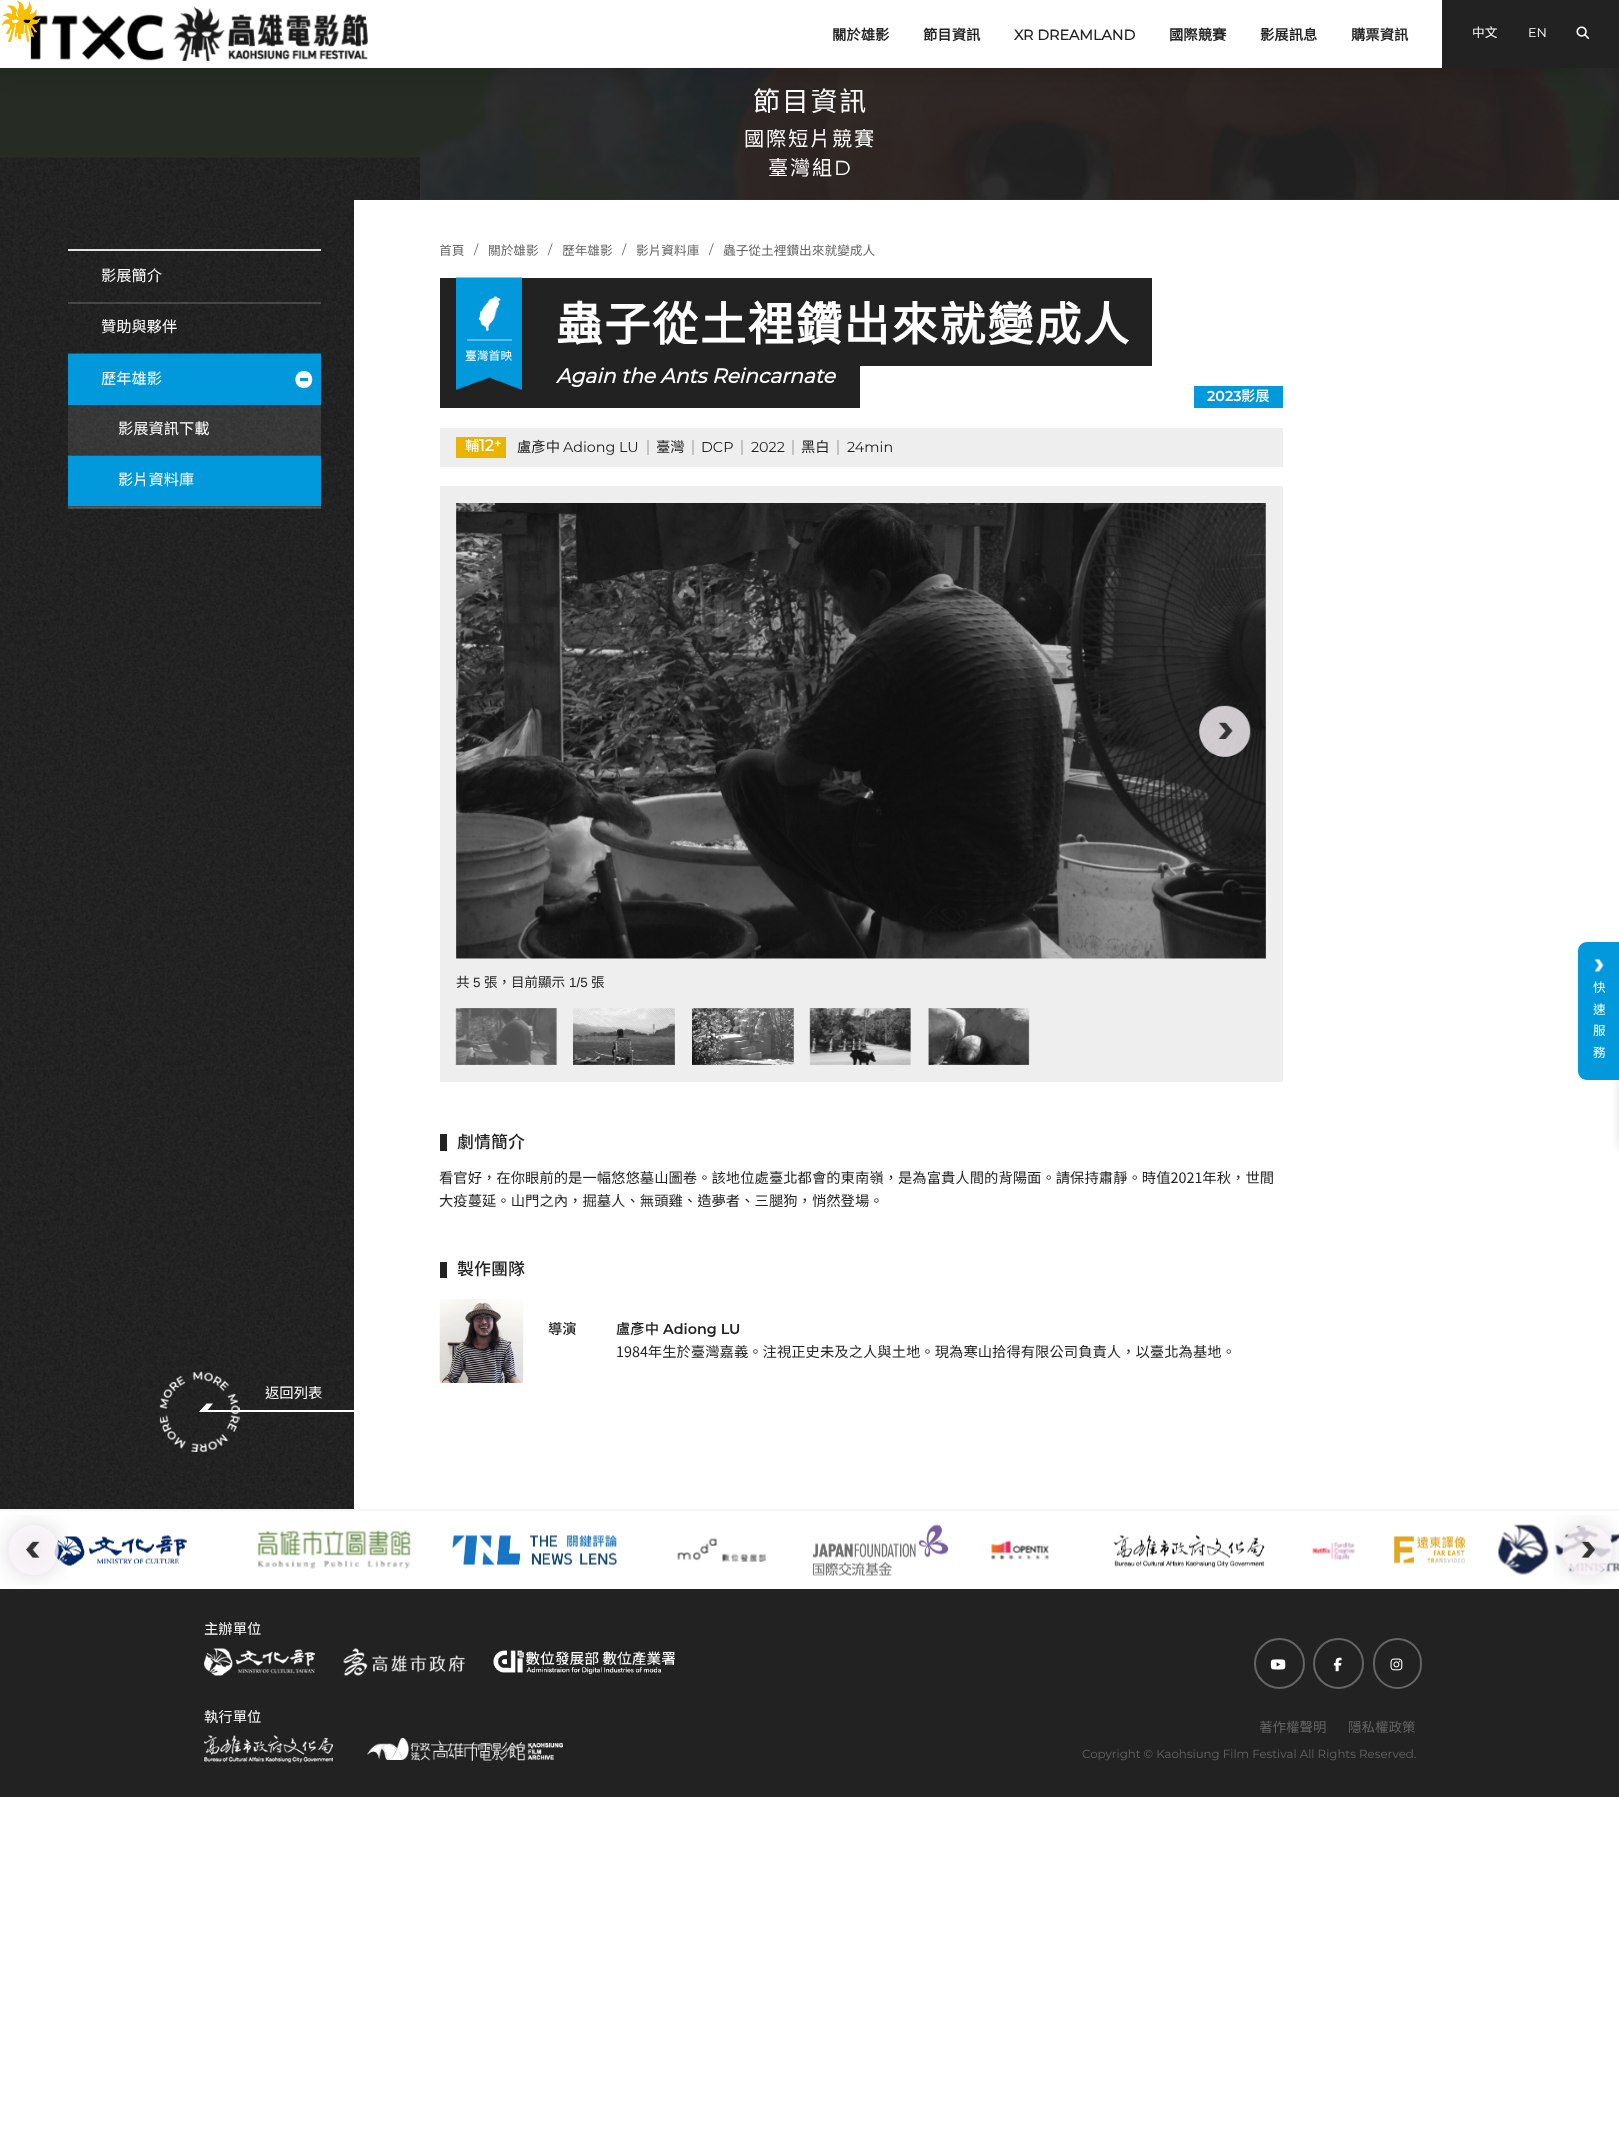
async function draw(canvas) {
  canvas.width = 1619;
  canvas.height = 2153;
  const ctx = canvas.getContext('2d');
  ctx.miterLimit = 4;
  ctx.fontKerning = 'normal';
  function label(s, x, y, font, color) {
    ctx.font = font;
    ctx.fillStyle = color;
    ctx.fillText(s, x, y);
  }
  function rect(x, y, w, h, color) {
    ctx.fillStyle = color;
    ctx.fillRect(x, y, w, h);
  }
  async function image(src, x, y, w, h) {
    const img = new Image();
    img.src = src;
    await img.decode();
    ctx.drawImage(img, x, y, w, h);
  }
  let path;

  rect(0, 0, 1619, 2153, '#fff');
  rect(420, 199, 1199, 1, '#313131');
  await image('assets/img5.png', 0, 67, 1619, 133);
  ctx.save();
  path = new Path2D('M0 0H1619V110H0ZM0 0H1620V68H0Z');
  ctx.clip(path, 'evenodd');
  ctx.fillStyle = '#00000026';
  ctx.filter = 'blur(12.5px)';
  ctx.beginPath();
  ctx.rect(0, 3, 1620, 68);
  ctx.fill();
  ctx.filter = 'none';
  ctx.restore();
  await image('assets/img3.png', 23, 6, 345, 56);
  await image('assets/img1.png', 1, 0, 40, 42);
  await image('assets/img2.png', 1, 0, 40, 42);
  rect(0, 67, 1442, 1, '#ffffffe6');
  label('關於雄影', 832, 40, 'bold 14.35px Noto Sans TC', '#222');
  label('節目資訊', 923, 40, 'bold 14.35px Noto Sans TC', '#222');
  label('XR DREAMLAND', 1014, 40, 'bold 14.35px Montserrat', '#222');
  label('國際競賽', 1169, 40, 'bold 14.35px Noto Sans TC', '#222');
  label('影展訊息', 1260, 40, 'bold 14.35px Noto Sans TC', '#222');
  label('購票資訊', 1351, 40, 'bold 14.35px Noto Sans TC', '#222');
  rect(1442, 0, 177, 68, '#222');
  label('中文', 1472, 37, '12.7px Noto Sans TC', '#fff');
  label('EN', 1528, 37, '12.7px Montserrat', '#fff');
  await image('assets/img4.png', 1576, 26, 14, 13);
  ctx.letterSpacing = '1.75px';
  label('節目資訊', 753, 111, '27px Noto Sans TC', '#fff');
  label('國際短片競賽', 744, 146, '20.25px Noto Sans TC', '#fff');
  label('臺灣組', 768, 175, '20.25px Noto Sans TC', '#fff');
  label('D', 834, 175, '20.25px Montserrat', '#fff');
  await image('assets/img6.png', 0, 157, 420, 1352);
  rect(68, 249, 253, 2, '#e3e3e3');
  rect(68, 302, 253, 2, '#e3e3e333');
  ctx.letterSpacing = '0px';
  label('影展簡介', 101, 281, '15.25px Noto Sans TC', '#fff');
  rect(68, 353, 253, 1, '#e3e3e333');
  label('贊助與夥伴', 101, 332, '15.25px Noto Sans TC', '#fff');
  rect(68, 507, 253, 2, '#e3e3e333');
  rect(68, 354, 253, 51, '#0198dc');
  label('歷年雄影', 101, 384, '15.25px Noto Sans TC', '#fff');
  path = new Path2D('M304 388C292.5 388 292.5 371 304 371C315 371 315 388 304 388Z');
  ctx.fill(path);
  rect(300, 378, 8, 3, '#0198dc');
  rect(68, 405, 253, 102, '#ffffff1a');
  rect(68, 455, 253, 1, '#e3e3e31a');
  label('影展資訊下載', 118, 434, '15.25px Noto Sans TC', '#fff');
  rect(68, 506, 253, 2, '#e3e3e31a');
  rect(68, 456, 253, 50, '#0198dc');
  label('影片資料庫', 118, 485, '15.25px Noto Sans TC', '#fff');
  rect(354, 200, 66, 1309, '#fff');
  label('首頁', 439, 255, '12.7px Noto Sans TC', '#646464');
  ctx.strokeStyle = '#fff';
  ctx.lineWidth = 3;
  ctx.strokeRect(438.5, 240.5, 27, 21);
  label('/', 474, 254, '12.7px Montserrat', '#646464');
  label('關於雄影', 488, 255, '12.7px Noto Sans TC', '#646464');
  label('/', 548, 254, '12.7px Montserrat', '#646464');
  label('歷年雄影', 562, 255, '12.7px Noto Sans TC', '#646464');
  ctx.strokeRect(561.5, 240.5, 52, 21);
  label('/', 622, 254, '12.7px Montserrat', '#646464');
  label('影片資料庫', 636, 255, '12.7px Noto Sans TC', '#646464');
  label('/', 709, 254, '12.7px Montserrat', '#646464');
  label('蟲子從土裡鑽出來就變成人', 723, 255, '12.7px Noto Sans TC', '#646464');
  rect(440, 278, 99, 130, '#222');
  await image('assets/img7.png', 456, 277, 66, 113);
  rect(467, 339, 45, 2, '#5abce8');
  await image('assets/img8.png', 478, 296, 23, 36);
  label('臺灣首映', 465, 360, '11.8px Noto Sans TC', '#fff');
  rect(539, 278, 613, 88, '#222');
  ctx.letterSpacing = '1.5px';
  label('蟲子從土裡鑽出來就變成人', 556, 341, 'bold 46.4px Noto Sans TC', '#fff');
  rect(539, 366, 321, 42, '#222');
  ctx.letterSpacing = '0px';
  label('Again the Ants Reincarnate', 556, 383, 'italic bold 20.25px Montserrat', '#fff');
  rect(1194, 386, 89, 22, '#0198dc');
  label('2023', 1207, 401, '600 14.35px Montserrat', '#fff');
  label('影展', 1241, 401, '500 14.35px Noto Sans TC', '#fff');
  rect(440, 428, 843, 39, '#eee');
  rect(456, 437, 50, 21, '#e8b400');
  label('輔', 465, 451, '14.35px Noto Sans TC', '#fff');
  label('12', 479, 451, 'bold 16px Montserrat', '#fff');
  label('+', 494, 448, 'bold 12.7px Montserrat', '#fff');
  label('盧彥中', 517, 452, '14.35px Noto Sans TC', '#222');
  label('Adiong LU', 563, 452, '14.35px Montserrat', '#222');
  rect(647, 440, 2, 15, '#c3c3c3');
  label('臺灣', 656, 452, '14.35px Noto Sans TC', '#222');
  rect(692, 440, 2, 15, '#c3c3c3');
  label('DCP', 701, 452, '14.35px Montserrat', '#222');
  rect(741, 440, 2, 15, '#c3c3c3');
  label('2022', 751, 452, '14.35px Montserrat', '#222');
  rect(792, 440, 2, 15, '#c3c3c3');
  label('黑白', 801, 452, '14.35px Noto Sans TC', '#222');
  rect(837, 440, 2, 15, '#c3c3c3');
  label('24min', 847, 452, '14.35px Montserrat', '#222');
  rect(440, 486, 843, 596, '#eee');
  await image('assets/img9.png', 456, 503, 810, 456);
  await image('assets/img10.png', 1265, 503, 1, 456);
  await image('assets/img11.png', 1199, 705, 52, 52);
  label('共', 456, 987, '13.5px Noto Sans CJK TC', '#222');
  label('5', 473, 987, '13.5px Liberation Sans', '#222');
  label('張，目前顯示', 484, 987, '13.5px Noto Sans CJK TC', '#222');
  label('1/5', 569, 987, '13.5px Liberation Sans', '#222');
  label('張', 591, 987, '13.5px Noto Sans CJK TC', '#222');
  await image('assets/img12.png', 455, 1008, 102, 57);
  await image('assets/img13.png', 573, 1008, 102, 57);
  await image('assets/img14.png', 692, 1008, 102, 57);
  await image('assets/img15.png', 809, 1008, 102, 57);
  await image('assets/img16.png', 928, 1008, 102, 57);
  rect(440, 1134, 7, 17, '#222');
  label('劇情簡介', 457, 1148, '500 17px Noto Sans TC', '#222');
  label('看官好，在你眼前的是一幅悠悠墓山圖卷。該地位處臺北都會的東南嶺，是為富貴人間的背陽面。請保持肅靜。時值2021年秋，世間', 439, 1183, '14.35px Noto Sans TC', '#222');
  label('大疫蔓延。山門之內，掘墓人、無頭雞、造夢者、三腿狗，悄然登場。', 439, 1206, '14.35px Noto Sans TC', '#222');
  rect(440, 1262, 7, 16, '#222');
  label('製作團隊', 457, 1275, '500 17px Noto Sans TC', '#222');
  await image('assets/img17.png', 439, 1299, 85, 84);
  label('導演', 548, 1334, '500 14.35px Noto Sans TC', '#222');
  label('盧彥中', 616, 1334, '500 14.35px Noto Sans TC', '#222');
  label('Adiong LU', 663, 1334, '600 14.35px Montserrat', '#222');
  label('1984年生於臺灣嘉義。注視正史未及之人與土地。現為寒山拾得有限公司負責人，以臺北為基地。', 616, 1357, '14.35px Noto Sans TC', '#222');
  rect(200, 1410, 154, 2, '#fff');
  path = new Path2D('M206.5 1403.5H213L206 1412H199Z');
  ctx.fill(path);
  await image('assets/img18.png', 159, 1371, 81, 81);
  label('返回列表', 265, 1398, '14.35px Noto Sans TC', '#fff');
  ctx.fillStyle = '#0000002b';
  ctx.filter = 'blur(4px)';
  ctx.beginPath();
  ctx.roundRect(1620, 942, 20, 209, 9);
  ctx.fill();
  ctx.filter = 'none';
  ctx.fillStyle = '#0198dc';
  path = new Path2D('M1587 942H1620V1080H1587C1582 1080 1578 1076 1578 1071V951C1578 946 1582 942 1587 942Z');
  ctx.fill(path);
  await image('assets/img19.png', 1594, 958, 10, 14);
  label('快', 1593, 992, '12.7px Noto Sans TC', '#fff');
  label('速', 1593, 1014, '12.7px Noto Sans TC', '#fff');
  label('服', 1593, 1035, '12.7px Noto Sans TC', '#fff');
  label('務', 1593, 1057, '12.7px Noto Sans TC', '#fff');
  rect(0, 1509, 1619, 2, '#f4f4f4');
  await image('assets/img22.png', 54, 1535, 133, 31);
  await image('assets/img20.png', 0, 1515, 68, 70);
  await image('assets/img31.png', 1498, 1524, 121, 51);
  await image('assets/img21.png', 1553, 1515, 66, 70);
  await image('assets/img23.png', 257, 1530, 154, 39);
  await image('assets/img24.png', 451, 1533, 167, 34);
  await image('assets/img25.png', 677, 1538, 90, 24);
  await image('assets/img26.png', 813, 1524, 135, 52);
  await image('assets/img27.png', 991, 1540, 58, 20);
  await image('assets/img28.png', 1114, 1534, 151, 34);
  await image('assets/img29.png', 1312, 1542, 43, 19);
  await image('assets/img30.png', 1394, 1535, 72, 29);
  rect(0, 1589, 1619, 208, '#222');
  label('主辦單位', 204, 1634, '14.35px Noto Sans TC', '#fff');
  await image('assets/img32.png', 204, 1648, 111, 28);
  await image('assets/img33.png', 343, 1648, 122, 28);
  await image('assets/img34.png', 493, 1650, 182, 24);
  label('執行單位', 204, 1722, '14.35px Noto Sans TC', '#fff');
  await image('assets/img35.png', 204, 1735, 129, 28);
  await image('assets/img36.png', 367, 1737, 196, 24);
  ctx.beginPath();
  ctx.arc(1279.5, 1663.5, 24.5, 0, 2 * Math.PI);
  ctx.strokeStyle = '#656565';
  ctx.lineWidth = 2;
  ctx.stroke();
  await image('assets/img37.png', 1270, 1659, 16, 11);
  ctx.beginPath();
  ctx.arc(1338.5, 1663.5, 24.5, 0, 2 * Math.PI);
  ctx.stroke();
  await image('assets/img38.png', 1333, 1657, 9, 15);
  ctx.beginPath();
  ctx.roundRect(1374, 1639, 47, 49, 23.5);
  ctx.stroke();
  await image('assets/img39.png', 1390, 1658, 13, 13);
  label('著作權聲明', 1259, 1732, '13.5px Noto Sans TC', '#646464');
  label('隱私權政策', 1348, 1732, '13.5px Noto Sans TC', '#646464');
  label('Copyright ©︎ Kaohsiung Film Festival All Rights Reserved.', 1082, 1758, '11.8px Montserrat', '#646464');
}

draw(document.querySelector('canvas'));
